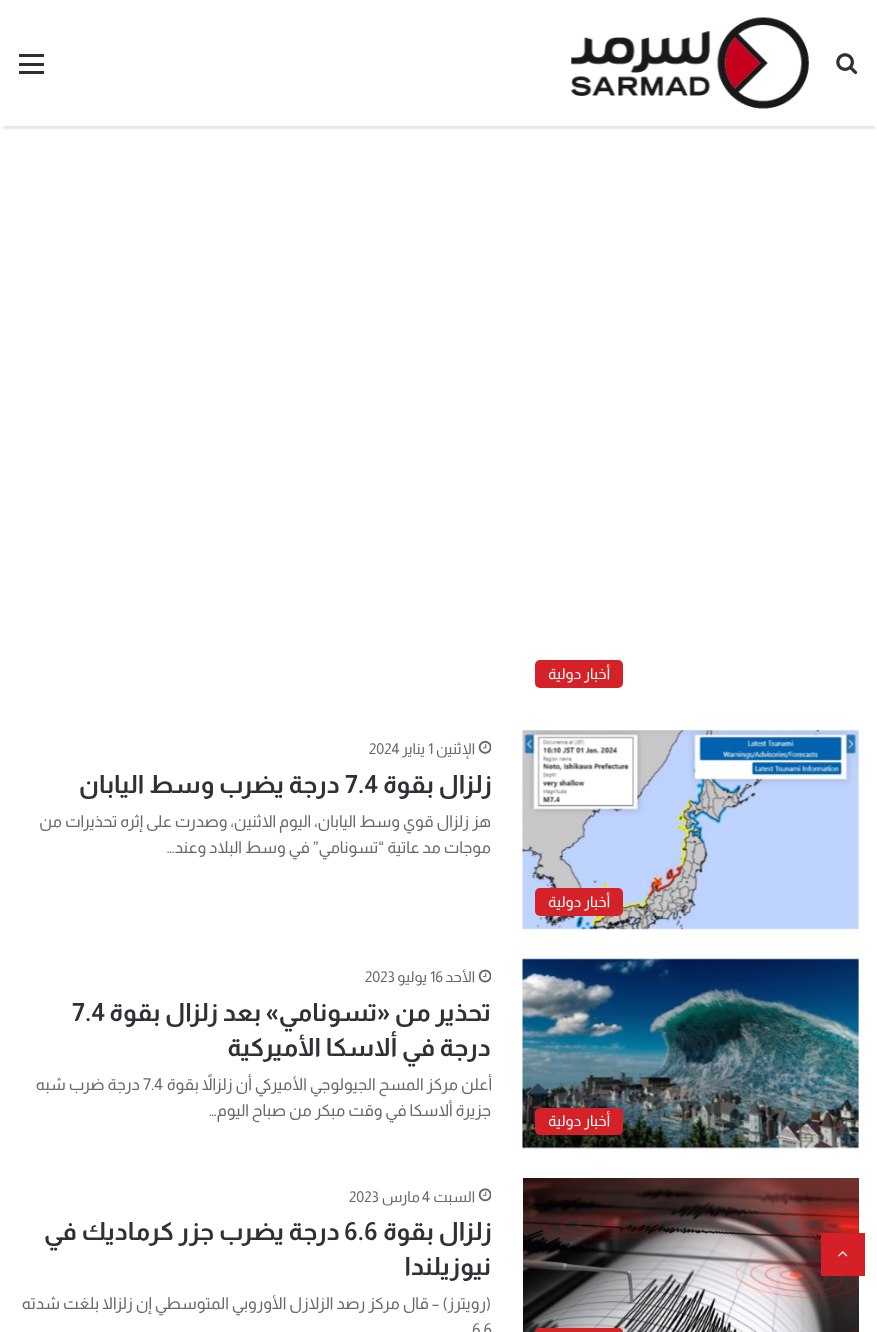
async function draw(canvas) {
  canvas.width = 877;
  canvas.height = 1332;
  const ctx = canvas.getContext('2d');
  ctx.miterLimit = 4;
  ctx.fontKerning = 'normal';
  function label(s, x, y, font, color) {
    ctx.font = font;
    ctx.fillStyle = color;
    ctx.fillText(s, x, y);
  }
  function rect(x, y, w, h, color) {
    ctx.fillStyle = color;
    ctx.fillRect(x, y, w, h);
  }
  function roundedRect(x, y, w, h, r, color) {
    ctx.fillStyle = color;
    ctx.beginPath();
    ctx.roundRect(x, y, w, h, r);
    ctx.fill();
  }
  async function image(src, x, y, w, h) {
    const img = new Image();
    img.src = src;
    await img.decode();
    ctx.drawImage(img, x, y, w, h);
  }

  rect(0, 0, 877, 1332, '#fff');
  ctx.save();
  ctx.beginPath();
  ctx.rect(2, 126, 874, 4);
  ctx.clip();
  ctx.fillStyle = '#0000001a';
  ctx.filter = 'blur(1px)';
  ctx.beginPath();
  ctx.rect(3, 8, 872, 121);
  ctx.fill();
  ctx.filter = 'none';
  ctx.restore();
  await image('assets/img1.png', 836, 53, 22, 22);
  await image('assets/img2.png', 571, 17, 238, 92);
  rect(19, 63, 25, 3, '#2c2f34');
  rect(19, 54, 25, 3, '#2c2f34');
  rect(19, 71, 25, 3, '#2c2f34');
  await image('assets/img8.png', 523, 1178, 336, 154);
  rect(821, 1233, 44, 43, '#d52027');
  await image('assets/img3.png', 838, 1251, 10, 6);
  roundedRect(535, 660, 88, 28, 5, '#d52229');
  ctx.direction = 'rtl';
  label('أخبار دولية', 610, 679, '15px Almarai', '#fff');
  await image('assets/img4.png', 478, 740, 13, 14);
  label('الإثنين', 475, 754, '15px Almarai', '#686868');
  ctx.direction = 'ltr';
  label('1', 428, 754, '15px Almarai', '#686868');
  ctx.direction = 'rtl';
  label('يناير', 425, 754, '15px Almarai', '#686868');
  ctx.direction = 'ltr';
  label('2024', 369, 754, '15px Almarai', '#686868');
  ctx.direction = 'rtl';
  label('زلزال بقوة', 492, 793, 'bold 25px Almarai', '#2e3136');
  ctx.direction = 'ltr';
  label('7.4', 345, 793, 'bold 25px Almarai', '#2e3136');
  ctx.direction = 'rtl';
  label('درجة يضرب وسط اليابان', 340, 793, 'bold 25px Almarai', '#2e3136');
  label('هز زلزال قوي وسط اليابان، اليوم الاثنين، وصدرت على إثره تحذيرات من', 491, 827, '16.25px Almarai', '#686868');
  label('موجات مد عاتية “تسونامي” في وسط البلاد وعند…', 491, 853, '16.25px Almarai', '#686868');
  await image('assets/img5.png', 522, 730, 337, 200);
  roundedRect(535, 888, 88, 28, 5, '#d52229');
  label('أخبار دولية', 610, 907, '15px Almarai', '#fff');
  await image('assets/img6.png', 522, 958, 337, 191);
  roundedRect(535, 1108, 88, 27, 5, '#d52229');
  label('أخبار دولية', 610, 1126, '15px Almarai', '#fff');
  await image('assets/img7.png', 478, 969, 13, 14);
  label('الأحد', 475, 982, '15px Almarai', '#686868');
  ctx.direction = 'ltr';
  label('16', 430, 982, '15px Almarai', '#686868');
  ctx.direction = 'rtl';
  label('يوليو', 427, 982, '15px Almarai', '#686868');
  ctx.direction = 'ltr';
  label('2023', 365, 982, '15px Almarai', '#686868');
  ctx.direction = 'rtl';
  label('تحذير من «تسونامي» بعد زلزال بقوة', 491, 1021, 'bold 25px Almarai', '#2e3136');
  ctx.direction = 'ltr';
  label('7.4', 72, 1021, 'bold 25px Almarai', '#2e3136');
  ctx.direction = 'rtl';
  label('درجة في ألاسكا الأميركية', 491, 1056, 'bold 25px Almarai', '#2e3136');
  label('أعلن مركز المسح الجيولوجي الأميركي أن زلزالاً بقوة', 492, 1090, '16.25px Almarai', '#686868');
  ctx.direction = 'ltr';
  label('7.4', 143, 1090, '16.25px Almarai', '#686868');
  ctx.direction = 'rtl';
  label('درجة ضرب شبه', 140, 1090, '16.25px Almarai', '#686868');
  label('جزيرة ألاسكا في وقت مبكر من صباح اليوم…', 491, 1116, '16.25px Almarai', '#686868');
  roundedRect(535, 1328, 88, 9, 5, '#d52229');
  await image('assets/img9.png', 478, 1188, 13, 14);
  label('السبت', 475, 1202, '15px Almarai', '#686868');
  ctx.direction = 'ltr';
  label('4', 422, 1202, '15px Almarai', '#686868');
  ctx.direction = 'rtl';
  label('مارس', 420, 1202, '15px Almarai', '#686868');
  ctx.direction = 'ltr';
  label('2023', 349, 1202, '15px Almarai', '#686868');
  ctx.direction = 'rtl';
  label('زلزال بقوة', 492, 1240, 'bold 25px Almarai', '#2e3136');
  ctx.direction = 'ltr';
  label('6.6', 344, 1240, 'bold 25px Almarai', '#2e3136');
  ctx.direction = 'rtl';
  label('درجة يضرب جزر كرماديك في', 340, 1240, 'bold 25px Almarai', '#2e3136');
  label('نيوزيلندا', 491, 1275, 'bold 25px Almarai', '#2e3136');
  label('(رويترز) – قال مركز رصد الزلازل الأوروبي المتوسطي إن زلزالا بلغت شدته', 491, 1309, '16.25px Almarai', '#686868');
  ctx.direction = 'ltr';
  label('6.6', 472, 1335, '16.25px Almarai', '#686868');
}

draw(document.querySelector('canvas'));
